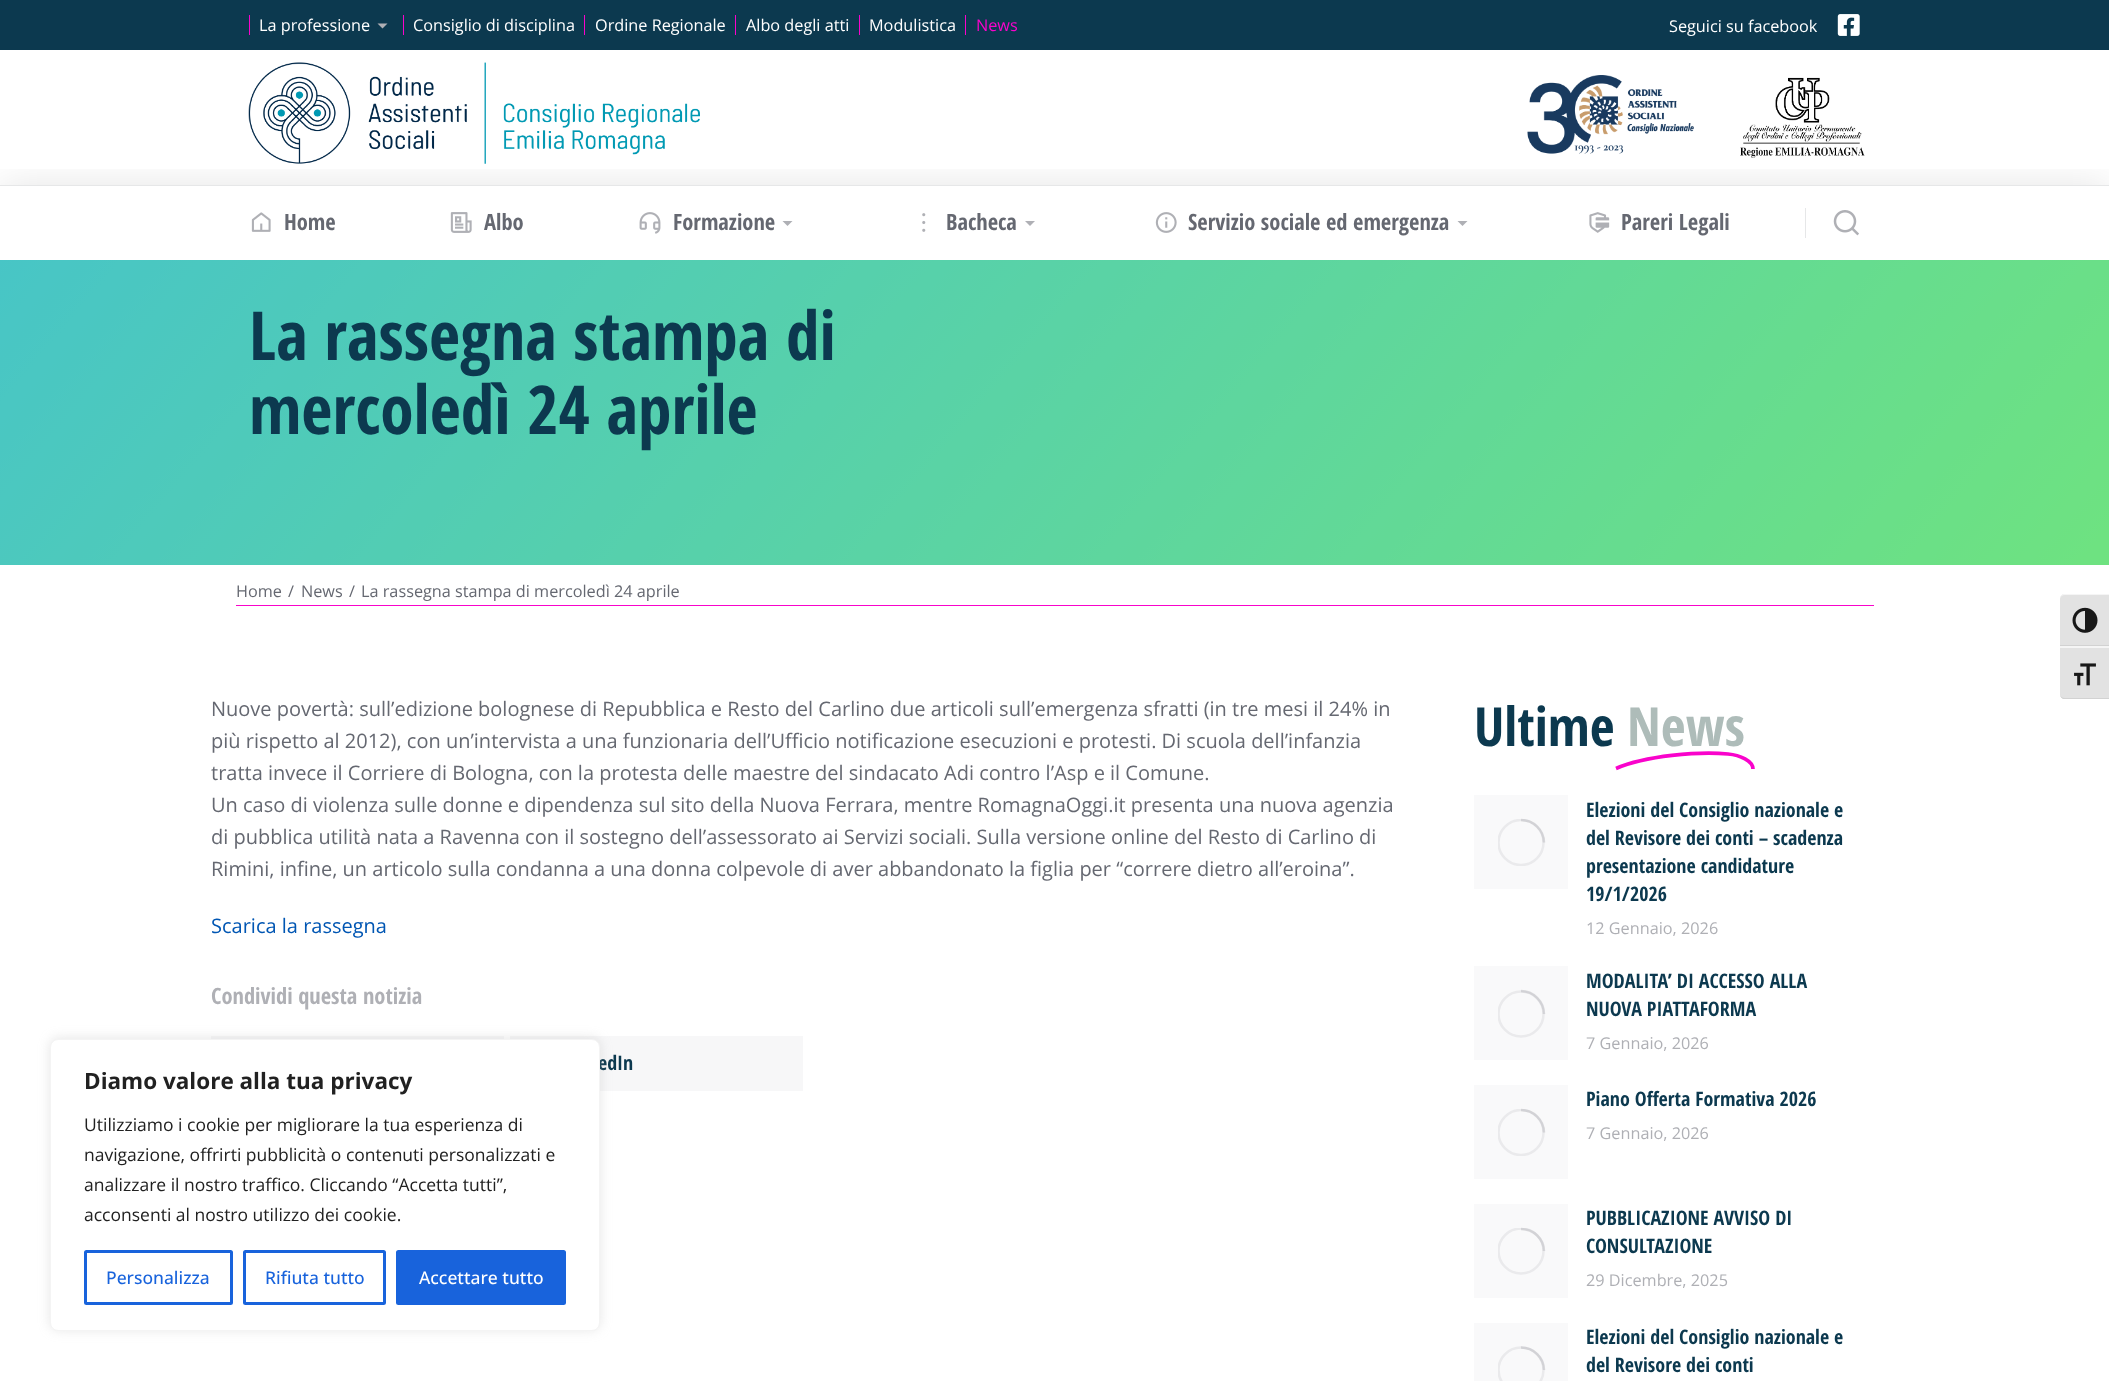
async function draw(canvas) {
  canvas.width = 2109;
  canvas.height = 1381;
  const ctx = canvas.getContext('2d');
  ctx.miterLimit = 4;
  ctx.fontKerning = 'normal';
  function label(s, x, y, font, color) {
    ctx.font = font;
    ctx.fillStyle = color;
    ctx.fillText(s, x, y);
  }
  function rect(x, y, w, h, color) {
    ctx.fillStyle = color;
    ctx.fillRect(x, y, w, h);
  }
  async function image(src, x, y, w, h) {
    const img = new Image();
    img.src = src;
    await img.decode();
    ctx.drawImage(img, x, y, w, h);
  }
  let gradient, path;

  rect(0, 0, 2109, 1381, '#fff');
  rect(0, 0, 2109, 50, '#0c394f');
  rect(249, 15, 1, 20, '#f903cb');
  label('La professione', 259, 31, '16.25px Open Sans', '#fff');
  ctx.fillStyle = '#afb0b5';
  path = new Path2D('M382.5 28.5L377.5 23.5H387.5Z');
  ctx.fill(path);
  rect(403, 15, 1, 20, '#f903cb');
  label('Consiglio di disciplina', 413, 31, '16.25px Open Sans', '#fff');
  rect(584, 15, 1, 20, '#f903cb');
  label('Ordine Regionale', 595, 31, '16.25px Open Sans', '#fff');
  rect(735, 15, 1, 20, '#f903cb');
  label('Albo degli atti', 746, 31, '16.25px Open Sans', '#fff');
  rect(859, 15, 1, 20, '#f903cb');
  label('Modulistica', 869, 31, '16.25px Open Sans', '#fff');
  rect(965, 15, 1, 20, '#f903cb');
  label('News', 976, 31, '16.25px Open Sans', '#f903cb');
  label('Seguici su facebook', 1669, 32, '16.25px Open Sans', '#fff');
  await image('assets/img1.png', 1837, 14, 23, 22);
  await image('assets/img2.png', 248, 62, 452, 102);
  await image('assets/img3.png', 1527, 75, 167, 79);
  await image('assets/img4.png', 1740, 77, 125, 81);
  ctx.save();
  ctx.beginPath();
  ctx.rect(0, 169, 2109, 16);
  ctx.clip();
  ctx.fillStyle = '#0000001a';
  ctx.filter = 'blur(19px)';
  ctx.beginPath();
  ctx.rect(0, 185, 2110, 75);
  ctx.fill();
  ctx.filter = 'none';
  ctx.restore();
  rect(0, 185, 2109, 1, '#e6e7e8');
  await image('assets/img5.png', 251, 212, 20, 20);
  label('Home', 284, 230, 'bold 22.5px Open Sans Condensed', '#656871');
  await image('assets/img6.png', 450, 212, 22, 21);
  label('Albo', 484, 230, 'bold 22.5px Open Sans Condensed', '#656871');
  await image('assets/img7.png', 639, 212, 22, 22);
  label('Formazione', 673, 230, 'bold 22.5px Open Sans Condensed', '#656871');
  ctx.fillStyle = '#afb0b5';
  path = new Path2D('M787.5 226L782.5 221H792.5Z');
  ctx.fill(path);
  await image('assets/img8.png', 922, 213, 4, 19);
  label('Bacheca', 946, 230, 'bold 22.5px Open Sans Condensed', '#656871');
  ctx.fillStyle = '#afb0b5';
  path = new Path2D('M1030 226L1025 221H1035Z');
  ctx.fill(path);
  await image('assets/img9.png', 1155, 212, 22, 21);
  label('Servizio sociale ed emergenza', 1188, 230, 'bold 22.5px Open Sans Condensed', '#656871');
  ctx.fillStyle = '#afb0b5';
  path = new Path2D('M1462.5 226L1457.5 221H1467.5Z');
  ctx.fill(path);
  await image('assets/img10.png', 1589, 212, 21, 21);
  label('Pareri Legali', 1621, 230, 'bold 22.5px Open Sans Condensed', '#656871');
  rect(1805, 208, 1, 30, '#e6e7e8');
  await image('assets/img11.png', 1833, 210, 26, 26);
  gradient = ctx.createLinearGradient(361, -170, 1749, 995);
  gradient.addColorStop(0, '#48c5c6');
  gradient.addColorStop(1, '#95ff3b');
  ctx.fillStyle = gradient;
  ctx.fillRect(0, 260, 2109, 305);
  rect(0, 260, 2109, 305, '#48c5c680');
  label('La rassegna stampa di', 249, 360, 'bold 67.5px Open Sans Condensed', '#0c394f');
  label('mercoledì 24 aprile', 249, 434, 'bold 67.5px Open Sans Condensed', '#0c394f');
  rect(236, 605, 1638, 1, '#f903cb');
  label('Home', 236, 597, '16.25px Open Sans', '#656871');
  label('/', 288, 597, '16.25px Open Sans', '#656871');
  label('News', 301, 597, '16.25px Open Sans', '#656871');
  label('/', 349, 597, '16.25px Open Sans', '#656871');
  label('La rassegna stampa di mercoledì 24 aprile', 361, 597, '16.25px Open Sans', '#656871');
  label('Nuove povertà: sull’edizione bolognese di Repubblica e Resto del Carlino due articoli sull’emergenza sfratti (in tre mesi il 24% in', 211, 716, '20px Open Sans', '#656871');
  label('più rispetto al 2012), con un’intervista a una funzionaria dell’Ufficio notificazione esecuzioni e protesti. Di scuola dell’infanzia', 211, 748, '20px Open Sans', '#656871');
  label('tratta invece il Corriere di Bologna, con la protesta delle maestre del sindacato Adi contro l’Asp e il Comune.', 211, 780, '20px Open Sans', '#656871');
  label('Un caso di violenza sulle donne e dipendenza sul sito della Nuova Ferrara, mentre RomagnaOggi.it presenta una nuova agenzia', 211, 812, '20px Open Sans', '#656871');
  label('di pubblica utilità nata a Ravenna con il sostegno dell’assessorato ai Servizi sociali. Sulla versione online del Resto di Carlino di', 211, 844, '20px Open Sans', '#656871');
  label('Rimini, infine, un articolo sulla condanna a una donna colpevole di aver abbandonato la figlia per “correre dietro all’eroina”.', 211, 876, '20px Open Sans', '#656871');
  label('Scarica la rassegna', 211, 933, '20px Open Sans', '#0056b3');
  label('Condividi questa notizia', 211, 1004, 'bold 22.5px Open Sans Condensed', '#afb0b5');
  rect(211, 1036, 293, 3, '#f7f7f8');
  rect(510, 1036, 293, 55, '#f7f7f8');
  label('edIn', 598, 1070, 'bold 20px Open Sans Condensed', '#0c394f');
  label('Ultime', 1474, 746, 'bold 54px Open Sans Condensed', '#0c394f');
  label('News', 1627, 746, 'bold 54px Open Sans Condensed', '#aebcb9');
  path = new Path2D('M1616 768.5C1645 756 1699 751 1728 754C1740 755 1753 761 1753 769');
  ctx.strokeStyle = '#f903cb';
  ctx.lineWidth = 3.7;
  ctx.stroke(path);
  rect(1474, 795, 94, 94, '#f9f9fa');
  ctx.save();
  ctx.beginPath();
  ctx.rect(1498, 819, 47, 47);
  ctx.clip();
  ctx.beginPath();
  ctx.arc(1521, 842.5, 22.5, 0, 2 * Math.PI);
  ctx.strokeStyle = '#eaeaec';
  ctx.lineWidth = 2.5;
  ctx.stroke();
  ctx.restore();
  path = new Path2D('M1544 842.5C1544 830 1533.5 820 1521 820');
  ctx.strokeStyle = '#8b8d9440';
  ctx.lineWidth = 2.5;
  ctx.stroke(path);
  label('Elezioni del Consiglio nazionale e', 1586, 817, 'bold 20px Open Sans Condensed', '#0c394f');
  label('del Revisore dei conti – scadenza', 1586, 845, 'bold 20px Open Sans Condensed', '#0c394f');
  label('presentazione candidature', 1586, 873, 'bold 20px Open Sans Condensed', '#0c394f');
  label('19/1/2026', 1586, 901, 'bold 20px Open Sans Condensed', '#0c394f');
  label('12 Gennaio, 2026', 1586, 934, '16.25px Open Sans', '#afb0b5');
  rect(1474, 966, 94, 94, '#f9f9fa');
  ctx.save();
  ctx.beginPath();
  ctx.rect(1498, 990, 47, 48);
  ctx.clip();
  ctx.beginPath();
  ctx.arc(1521, 1014, 22.5, 0, 2 * Math.PI);
  ctx.strokeStyle = '#eaeaec';
  ctx.stroke();
  ctx.restore();
  path = new Path2D('M1544 1014C1544 1001.5 1533.5 991 1521 991');
  ctx.stroke(path);
  label('MODALITA’ DI ACCESSO ALLA', 1586, 988, 'bold 20px Open Sans Condensed', '#0c394f');
  label('NUOVA PIATTAFORMA', 1586, 1016, 'bold 20px Open Sans Condensed', '#0c394f');
  label('7 Gennaio, 2026', 1586, 1049, '16.25px Open Sans', '#afb0b5');
  rect(1474, 1085, 94, 94, '#f9f9fa');
  ctx.save();
  ctx.beginPath();
  ctx.rect(1498, 1109, 47, 47);
  ctx.clip();
  ctx.beginPath();
  ctx.arc(1521, 1132.5, 22.5, 0, 2 * Math.PI);
  ctx.strokeStyle = '#eaeaec';
  ctx.stroke();
  ctx.restore();
  path = new Path2D('M1544 1132.5C1544 1120 1533.5 1110 1521 1110');
  ctx.stroke(path);
  label('Piano Offerta Formativa 2026', 1586, 1106, 'bold 20px Open Sans Condensed', '#0c394f');
  label('7 Gennaio, 2026', 1586, 1139, '16.25px Open Sans', '#afb0b5');
  rect(1474, 1204, 94, 94, '#f9f9fa');
  ctx.save();
  ctx.beginPath();
  ctx.rect(1498, 1228, 47, 47);
  ctx.clip();
  ctx.beginPath();
  ctx.arc(1521, 1251, 22.5, 0, 2 * Math.PI);
  ctx.strokeStyle = '#eaeaec';
  ctx.stroke();
  ctx.restore();
  path = new Path2D('M1544 1251C1544 1239 1533.5 1229 1521 1229');
  ctx.stroke(path);
  label('PUBBLICAZIONE AVVISO DI', 1586, 1225, 'bold 20px Open Sans Condensed', '#0c394f');
  label('CONSULTAZIONE', 1586, 1253, 'bold 20px Open Sans Condensed', '#0c394f');
  label('29 Dicembre, 2025', 1586, 1286, '16.25px Open Sans', '#afb0b5');
  rect(1474, 1323, 94, 58, '#f9f9fa');
  ctx.save();
  ctx.beginPath();
  ctx.rect(1498, 1346, 47, 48);
  ctx.clip();
  ctx.beginPath();
  ctx.arc(1521, 1370, 22.5, 0, 2 * Math.PI);
  ctx.strokeStyle = '#eaeaec';
  ctx.stroke();
  ctx.restore();
  path = new Path2D('M1544 1370C1544 1357.5 1533.5 1347.5 1521 1347.5');
  ctx.stroke(path);
  label('Elezioni del Consiglio nazionale e', 1586, 1344, 'bold 20px Open Sans Condensed', '#0c394f');
  label('del Revisore dei conti', 1586, 1372, 'bold 20px Open Sans Condensed', '#0c394f');
  ctx.fillStyle = '#e2e2e2';
  path = new Path2D('M2065 594H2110V646H2060V599C2060 596 2062 594 2065 594Z');
  ctx.fill(path);
  ctx.fillStyle = '#f5f5f5';
  path = new Path2D('M2065 594H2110V595H2065C2062 595 2060 597 2060 599C2060 596 2062 594 2065 594Z');
  ctx.fill(path);
  rect(2060, 645, 49, 1, '#d2d2d2');
  await image('assets/img12.png', 2072, 607, 26, 26);
  ctx.fillStyle = '#e2e2e2';
  path = new Path2D('M2060 646H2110V699H2065C2062 699 2060 697 2060 694Z');
  ctx.fill(path);
  rect(2060, 646, 49, 2, '#f5f5f5');
  ctx.fillStyle = '#d2d2d2';
  path = new Path2D('M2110 699H2063C2061 698 2060 696 2060 694C2060 696 2062 698 2065 698H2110Z');
  ctx.fill(path);
  await image('assets/img13.png', 2074, 663, 22, 23);
  ctx.fillStyle = '#acabab4d';
  ctx.filter = 'blur(6px)';
  ctx.beginPath();
  ctx.roundRect(50, 1038, 550, 292, 8);
  ctx.fill();
  ctx.filter = 'none';
  ctx.fillStyle = '#fff';
  ctx.beginPath();
  ctx.roundRect(50.5, 1039.5, 549, 291, 7.5);
  ctx.fill();
  ctx.strokeStyle = '#f4f4f4';
  ctx.lineWidth = 1;
  ctx.stroke();
  label('Diamo valore alla tua privacy', 84, 1089, 'bold 22.5px Open Sans', '#212121');
  label('Utilizziamo i cookie per migliorare la tua esperienza di', 84, 1131, '17.5px Open Sans', '#212121');
  label('navigazione, offrirti pubblicità o contenuti personalizzati e', 84, 1161, '17.5px Open Sans', '#212121');
  label('analizzare il nostro traffico. Cliccando “Accetta tutti”,', 84, 1191, '17.5px Open Sans', '#212121');
  label('acconsenti al nostro utilizzo dei cookie.', 84, 1221, '17.5px Open Sans', '#212121');
  ctx.beginPath();
  ctx.roundRect(85.5, 1251.5, 146, 52, 1);
  ctx.strokeStyle = '#1863dc';
  ctx.lineWidth = 3;
  ctx.stroke();
  label('Personalizza', 106, 1284, '500 17.5px Open Sans', '#1863dc');
  ctx.beginPath();
  ctx.roundRect(244.5, 1251.5, 140, 52, 1);
  ctx.stroke();
  label('Rifiuta tutto', 265, 1284, '500 17.5px Open Sans', '#1863dc');
  ctx.beginPath();
  ctx.roundRect(397.5, 1251.5, 167, 52, 1);
  ctx.fill();
  ctx.stroke();
  label('Accettare tutto', 419, 1284, '500 17.5px Open Sans', '#fff');
}

draw(document.querySelector('canvas'));
